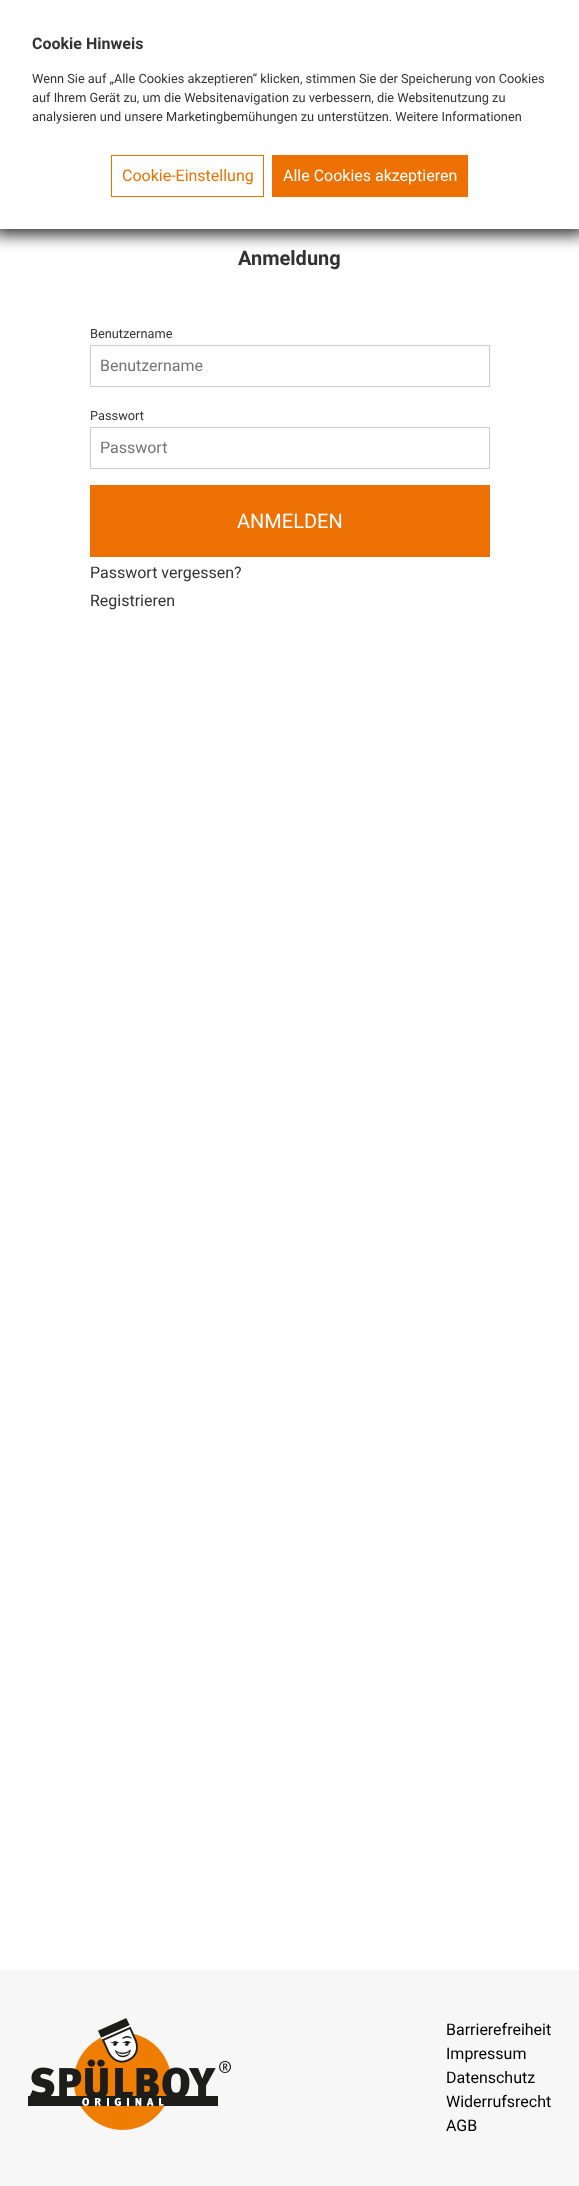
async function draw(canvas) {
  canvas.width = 579;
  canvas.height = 2186;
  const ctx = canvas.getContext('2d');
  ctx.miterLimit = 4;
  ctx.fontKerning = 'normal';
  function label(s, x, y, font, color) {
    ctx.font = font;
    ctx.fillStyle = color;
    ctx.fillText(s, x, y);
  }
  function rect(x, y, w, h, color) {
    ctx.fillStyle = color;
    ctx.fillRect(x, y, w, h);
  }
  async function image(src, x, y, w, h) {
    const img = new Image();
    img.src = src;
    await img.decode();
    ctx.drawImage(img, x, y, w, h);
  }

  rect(0, 0, 579, 2186, '#fff');
  ctx.fillStyle = '#333';
  ctx.filter = 'blur(8px)';
  ctx.beginPath();
  ctx.rect(-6, -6, 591, 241);
  ctx.fill();
  ctx.filter = 'none';
  rect(0, 0, 579, 229, '#fff');
  label('Cookie Hinweis', 32, 49, 'bold 16px Roboto', '#333');
  label('Wenn Sie auf „Alle Cookies akzeptieren“ klicken, stimmen Sie der Speicherung von Cookies', 32, 83, '12.8px Roboto', '#333');
  label('auf Ihrem Gerät zu, um die Websitenavigation zu verbessern, die Websitenutzung zu', 32, 102, '12.8px Roboto', '#333');
  label('analysieren und unsere Marketingbemühungen zu unterstützen. Weitere Informationen', 32, 121, '12.8px Roboto', '#333');
  ctx.strokeStyle = '#ed7002';
  ctx.strokeRect(111.5, 155.5, 152, 41);
  label('Cookie-Einstellung', 122, 181, '16px Roboto', '#ed7002');
  rect(272, 155, 196, 42, '#ed7002');
  label('Alle Cookies akzeptieren', 283, 181, '16px Roboto', '#fff');
  label('Anmeldung', 238, 265, 'bold 20px Roboto', '#333');
  label('Benutzername', 90, 338, '12.8px Roboto', '#333');
  ctx.strokeStyle = '#ccc';
  ctx.strokeRect(90.5, 345.5, 399, 41);
  label('Benutzername', 100, 371, '16px Roboto', '#757575');
  label('Passwort', 90, 420, '12.8px Roboto', '#333');
  ctx.strokeRect(90.5, 427.5, 399, 41);
  label('Passwort', 100, 453, '16px Roboto', '#757575');
  rect(90, 485, 400, 72, '#ed7002');
  label('ANMELDEN', 237, 528, '20px Roboto', '#fff');
  label('Passwort vergessen?', 90, 578, '16px Roboto', '#333');
  label('Registrieren', 90, 606, '16px Roboto', '#333');
  rect(0, 1970, 579, 216, '#f7f7f7');
  await image('assets/img1.png', 28, 2018, 203, 112);
  label('Barrierefreiheit', 446, 2035, '16px Roboto', '#000');
  label('Impressum', 446, 2059, '16px Roboto', '#000');
  label('Datenschutz', 446, 2083, '16px Roboto', '#000');
  label('Widerrufsrecht', 446, 2107, '16px Roboto', '#000');
  label('AGB', 446, 2131, '16px Roboto', '#000');
}

draw(document.querySelector('canvas'));
